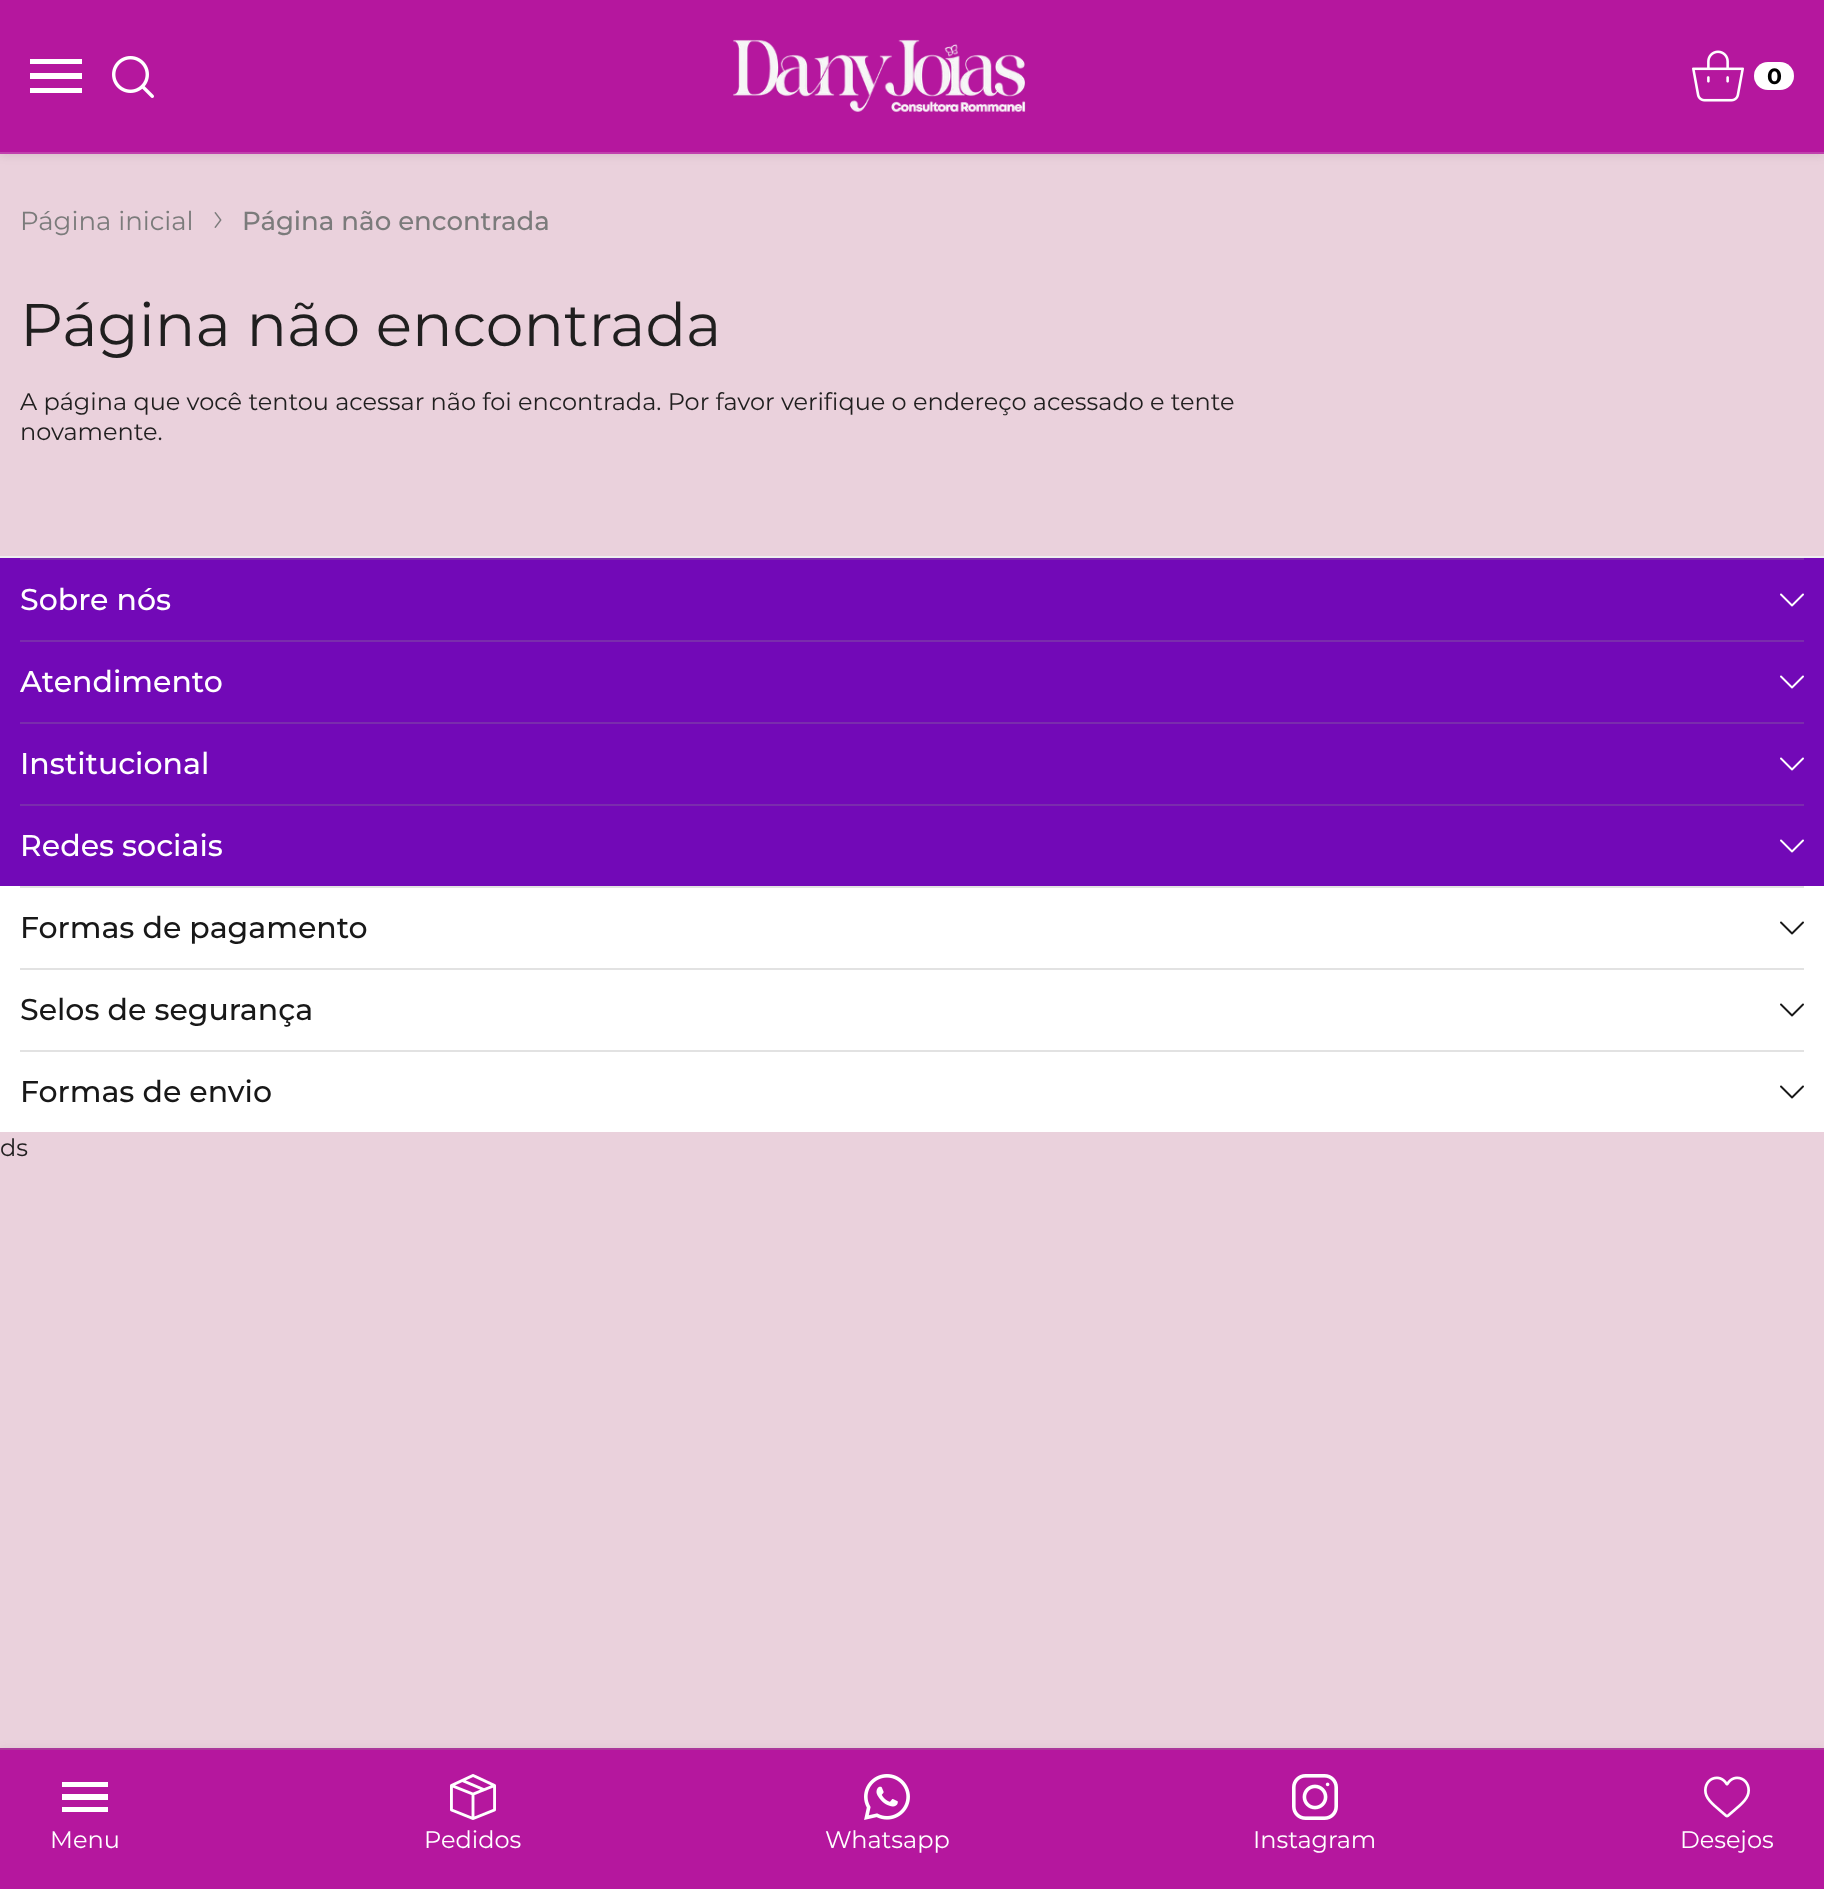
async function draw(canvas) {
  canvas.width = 1824;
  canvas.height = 1889;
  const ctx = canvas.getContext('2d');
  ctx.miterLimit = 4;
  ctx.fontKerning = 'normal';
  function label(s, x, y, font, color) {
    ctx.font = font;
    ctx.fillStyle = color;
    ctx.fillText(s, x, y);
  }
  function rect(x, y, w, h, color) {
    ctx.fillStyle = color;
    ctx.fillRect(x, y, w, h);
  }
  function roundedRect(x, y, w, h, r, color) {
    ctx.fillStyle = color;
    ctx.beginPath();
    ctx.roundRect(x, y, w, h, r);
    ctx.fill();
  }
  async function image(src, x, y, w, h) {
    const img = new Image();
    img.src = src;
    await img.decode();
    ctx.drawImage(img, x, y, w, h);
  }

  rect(0, 0, 1824, 1889, '#ead1dc');
  ctx.fillStyle = '#52525221';
  ctx.filter = 'blur(4px)';
  ctx.beginPath();
  ctx.rect(0, 2, 1824, 154);
  ctx.fill();
  ctx.filter = 'none';
  rect(0, 0, 1824, 152, '#b5179e');
  rect(0, 152, 1824, 2, '#c040ad');
  rect(30, 88, 52, 5, '#fff');
  rect(30, 73, 52, 6, '#fff');
  rect(30, 59, 52, 5, '#fff');
  await image('assets/img1.png', 112, 56, 42, 42);
  await image('assets/img2.png', 733, 39, 293, 74);
  await image('assets/img3.png', 1692, 50, 52, 52);
  roundedRect(1754, 62, 40, 28, 14, '#fff');
  label('0', 1767, 84, 'bold 22px Montserrat', '#000');
  label('Página inicial', 20, 230, '26px Montserrat', '#7b7b7b');
  await image('assets/img4.png', 214, 212, 8, 16);
  label('Página não encontrada', 242, 230, '500 26px Montserrat', '#7b7b7b');
  label('Página não encontrada', 20, 346, '60px Montserrat', '#201f1f');
  label('A página que você tentou acessar não foi encontrada. Por favor verifique o endereço acessado e tente', 20, 410, '24px Montserrat', '#201f1f');
  label('novamente.', 20, 440, '24px Montserrat', '#201f1f');
  rect(0, 556, 1824, 2, '#efefef');
  rect(0, 558, 1824, 328, '#7209b7');
  rect(20, 558, 1784, 2, '#7a2cad');
  label('Sobre nós', 20, 610, '500 30px Montserrat', '#fff');
  await image('assets/img5.png', 1780, 593, 24, 14);
  rect(20, 640, 1784, 2, '#7a2cad');
  label('Atendimento', 20, 692, '500 30px Montserrat', '#fff');
  await image('assets/img5.png', 1780, 675, 24, 14);
  rect(20, 722, 1784, 2, '#7a2cad');
  label('Institucional', 20, 774, '500 30px Montserrat', '#fff');
  await image('assets/img5.png', 1780, 757, 24, 14);
  rect(20, 804, 1784, 2, '#7a2cad');
  label('Redes sociais', 20, 856, '500 30px Montserrat', '#fff');
  await image('assets/img5.png', 1780, 839, 24, 14);
  rect(0, 886, 1824, 246, '#fff');
  rect(20, 886, 1784, 2, '#e2e2e2');
  label('Formas de pagamento', 20, 938, '500 30px Montserrat', '#181818');
  await image('assets/img6.png', 1780, 921, 24, 14);
  rect(20, 968, 1784, 2, '#e2e2e2');
  label('Selos de segurança', 20, 1020, '500 30px Montserrat', '#181818');
  await image('assets/img6.png', 1780, 1003, 24, 14);
  rect(20, 1050, 1784, 2, '#e2e2e2');
  label('Formas de envio', 20, 1102, '500 30px Montserrat', '#181818');
  await image('assets/img6.png', 1780, 1085, 24, 14);
  label('ds', 0, 1156, '24px Montserrat', '#201f1f');
  ctx.fillStyle = '#52525214';
  ctx.filter = 'blur(4px)';
  ctx.beginPath();
  ctx.rect(0, 1748, 1824, 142);
  ctx.fill();
  ctx.filter = 'none';
  rect(0, 1750, 1824, 139, '#b5179e');
  rect(0, 1748, 1824, 2, '#ab369a');
  rect(62, 1807, 46, 5, '#fff');
  rect(62, 1794, 46, 6, '#fff');
  rect(62, 1782, 46, 5, '#fff');
  label('Menu', 50, 1848, '24px Montserrat', '#fff');
  await image('assets/img7.png', 450, 1774, 46, 46);
  label('Pedidos', 424, 1848, '24px Montserrat', '#fff');
  await image('assets/img8.png', 864, 1774, 46, 46);
  label('Whatsapp', 825, 1848, '24px Montserrat', '#fff');
  await image('assets/img9.png', 1292, 1774, 46, 46);
  label('Instagram', 1253, 1848, '24px Montserrat', '#fff');
  await image('assets/img10.png', 1704, 1776, 46, 42);
  label('Desejos', 1680, 1848, '24px Montserrat', '#fff');
}

draw(document.querySelector('canvas'));
